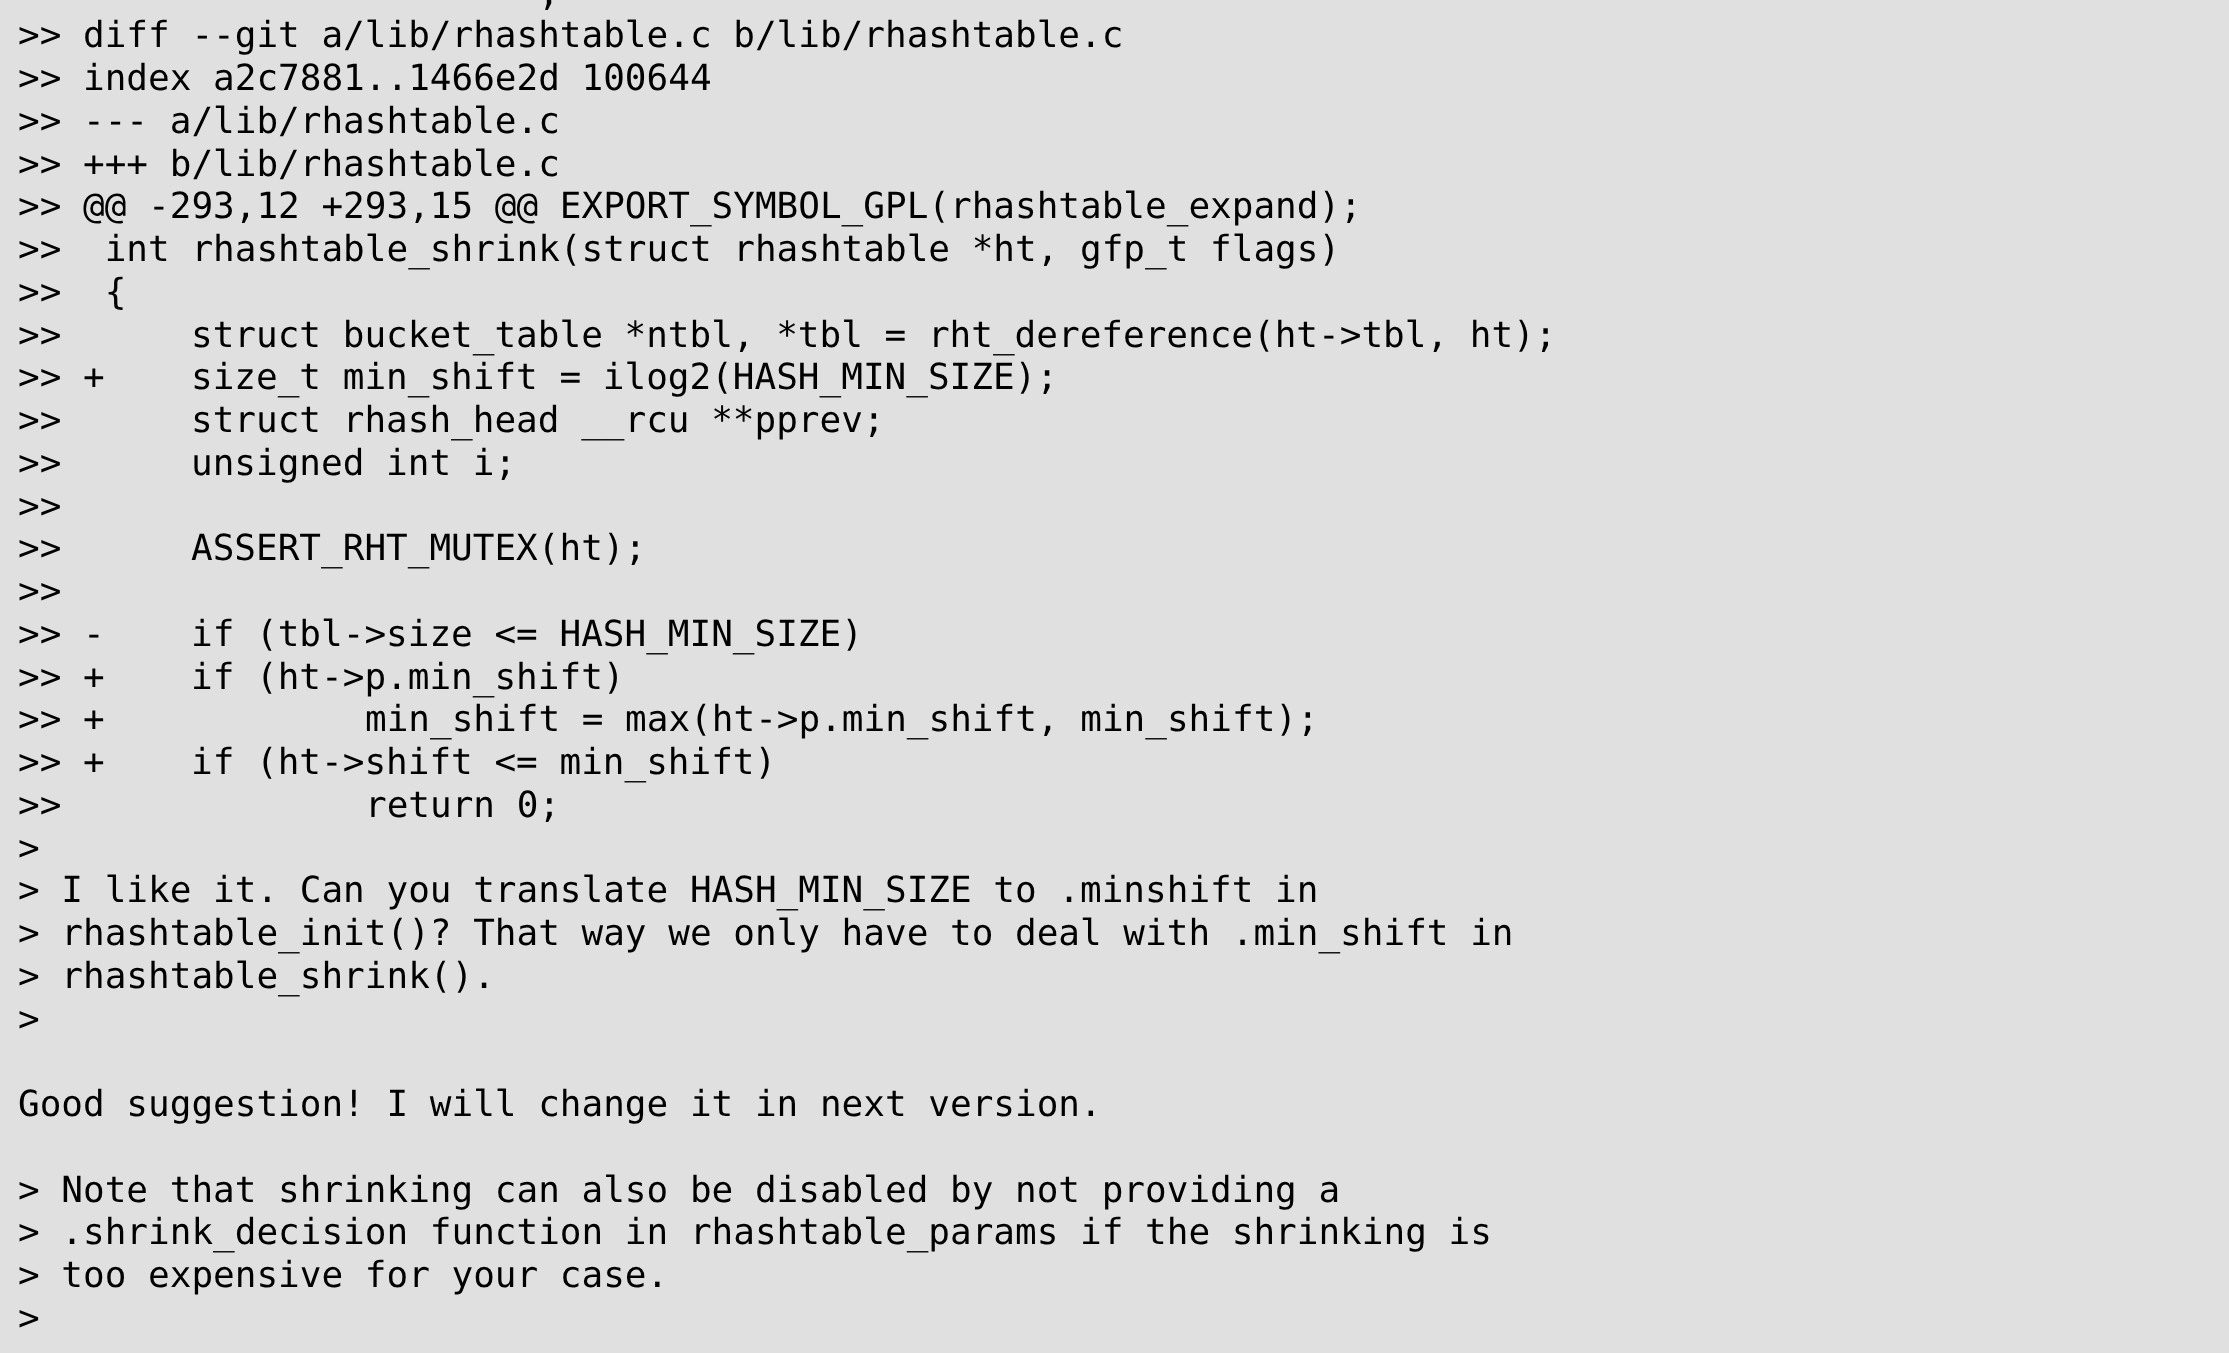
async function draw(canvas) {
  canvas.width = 2229;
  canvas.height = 1353;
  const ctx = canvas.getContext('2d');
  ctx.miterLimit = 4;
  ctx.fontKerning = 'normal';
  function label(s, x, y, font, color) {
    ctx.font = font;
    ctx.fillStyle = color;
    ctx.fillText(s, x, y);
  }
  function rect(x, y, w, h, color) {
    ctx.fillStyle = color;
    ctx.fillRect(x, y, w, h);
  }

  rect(0, 0, 2229, 1353, '#e0e0e0');
  label(',', 538, 5, '36px DejaVu Sans Mono', '#000');
  label('>> diff --git a/lib/rhashtable.c b/lib/rhashtable.c', 18, 47, '36px DejaVu Sans Mono', '#000');
  label('>> index a2c7881..1466e2d 100644', 18, 90, '36px DejaVu Sans Mono', '#000');
  label('>> --- a/lib/rhashtable.c', 18, 133, '36px DejaVu Sans Mono', '#000');
  label('>> +++ b/lib/rhashtable.c', 18, 176, '36px DejaVu Sans Mono', '#000');
  label('>> @@ -293,12 +293,15 @@ EXPORT_SYMBOL_GPL(rhashtable_expand);', 18, 218, '36px DejaVu Sans Mono', '#000');
  label('>>  int rhashtable_shrink(struct rhashtable *ht, gfp_t flags)', 18, 261, '36px DejaVu Sans Mono', '#000');
  label('>>  {', 18, 304, '36px DejaVu Sans Mono', '#000');
  label('>>', 18, 347, '36px DejaVu Sans Mono', '#000');
  label('struct bucket_table *ntbl, *tbl = rht_dereference(ht->tbl, ht);', 191, 347, '36px DejaVu Sans Mono', '#000');
  label('>> +', 18, 389, '36px DejaVu Sans Mono', '#000');
  label('size_t min_shift = ilog2(HASH_MIN_SIZE);', 191, 389, '36px DejaVu Sans Mono', '#000');
  label('>>', 18, 432, '36px DejaVu Sans Mono', '#000');
  label('struct rhash_head __rcu **pprev;', 191, 432, '36px DejaVu Sans Mono', '#000');
  label('>>', 18, 475, '36px DejaVu Sans Mono', '#000');
  label('unsigned int i;', 191, 475, '36px DejaVu Sans Mono', '#000');
  label('>>', 18, 518, '36px DejaVu Sans Mono', '#000');
  label('>>', 18, 560, '36px DejaVu Sans Mono', '#000');
  label('ASSERT_RHT_MUTEX(ht);', 191, 560, '36px DejaVu Sans Mono', '#000');
  label('>>', 18, 603, '36px DejaVu Sans Mono', '#000');
  label('>> -', 18, 646, '36px DejaVu Sans Mono', '#000');
  label('if (tbl->size <= HASH_MIN_SIZE)', 191, 646, '36px DejaVu Sans Mono', '#000');
  label('>> +', 18, 689, '36px DejaVu Sans Mono', '#000');
  label('if (ht->p.min_shift)', 191, 689, '36px DejaVu Sans Mono', '#000');
  label('>> +', 18, 731, '36px DejaVu Sans Mono', '#000');
  label('min_shift = max(ht->p.min_shift, min_shift);', 365, 731, '36px DejaVu Sans Mono', '#000');
  label('>> +', 18, 774, '36px DejaVu Sans Mono', '#000');
  label('if (ht->shift <= min_shift)', 191, 774, '36px DejaVu Sans Mono', '#000');
  label('>>', 18, 817, '36px DejaVu Sans Mono', '#000');
  label('return 0;', 365, 817, '36px DejaVu Sans Mono', '#000');
  label('>', 18, 860, '36px DejaVu Sans Mono', '#000');
  label('> I like it. Can you translate HASH_MIN_SIZE to .minshift in', 18, 902, '36px DejaVu Sans Mono', '#000');
  label('> rhashtable_init()? That way we only have to deal with .min_shift in', 18, 945, '36px DejaVu Sans Mono', '#000');
  label('> rhashtable_shrink().', 18, 988, '36px DejaVu Sans Mono', '#000');
  label('>', 18, 1031, '36px DejaVu Sans Mono', '#000');
  label('Good suggestion! I will change it in next version.', 18, 1116, '36px DejaVu Sans Mono', '#000');
  label('> Note that shrinking can also be disabled by not providing a', 18, 1202, '36px DejaVu Sans Mono', '#000');
  label('> .shrink_decision function in rhashtable_params if the shrinking is', 18, 1244, '36px DejaVu Sans Mono', '#000');
  label('> too expensive for your case.', 18, 1287, '36px DejaVu Sans Mono', '#000');
  label('>', 18, 1330, '36px DejaVu Sans Mono', '#000');
}

draw(document.querySelector('canvas'));
